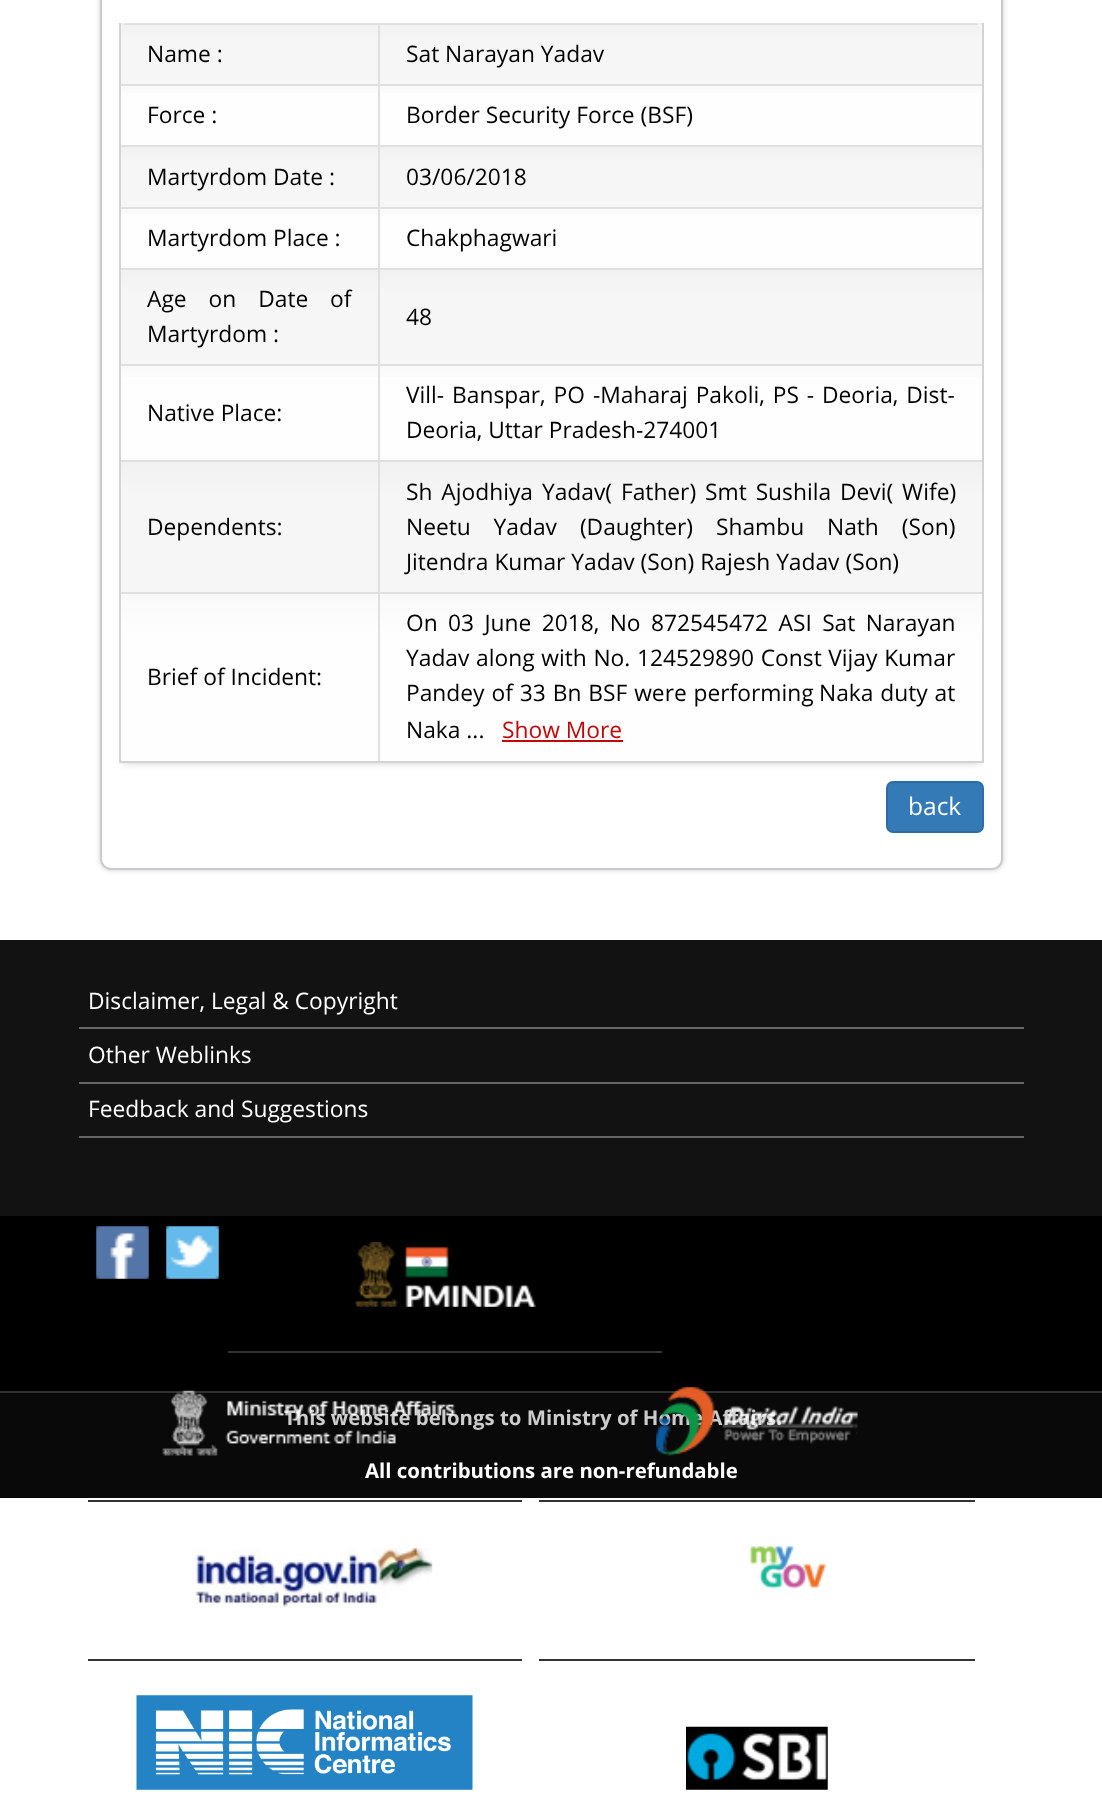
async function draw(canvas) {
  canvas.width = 1102;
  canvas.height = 1814;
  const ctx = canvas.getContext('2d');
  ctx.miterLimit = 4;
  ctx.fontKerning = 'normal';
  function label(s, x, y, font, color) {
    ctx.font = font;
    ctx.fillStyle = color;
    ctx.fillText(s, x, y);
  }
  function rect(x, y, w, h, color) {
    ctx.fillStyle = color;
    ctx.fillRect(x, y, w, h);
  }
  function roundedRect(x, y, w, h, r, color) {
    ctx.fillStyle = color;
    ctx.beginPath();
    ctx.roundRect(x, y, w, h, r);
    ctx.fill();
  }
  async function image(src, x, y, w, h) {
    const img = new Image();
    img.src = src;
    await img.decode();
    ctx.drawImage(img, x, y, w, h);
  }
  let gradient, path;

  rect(0, 0, 1102, 1814, '#fff');
  ctx.save();
  path = new Path2D('M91 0H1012V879H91ZM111-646H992C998-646 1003-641 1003-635V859C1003 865 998 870 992 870H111C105 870 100 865 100 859V-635C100-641 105-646 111-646Z');
  ctx.clip(path, 'evenodd');
  ctx.fillStyle = '#00000033';
  ctx.filter = 'blur(2.5px)';
  ctx.beginPath();
  ctx.roundRect(100, -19, 903, 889, 11);
  ctx.fill();
  ctx.filter = 'none';
  ctx.restore();
  ctx.beginPath();
  ctx.roundRect(101, -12, 901, 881, 10);
  ctx.strokeStyle = '#c9cbcd';
  ctx.lineWidth = 2;
  ctx.stroke();
  ctx.save();
  ctx.beginPath();
  ctx.rect(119, 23, 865, 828);
  ctx.clip();
  ctx.fillStyle = '#00000033';
  ctx.filter = 'blur(3.5px)';
  ctx.beginPath();
  ctx.roundRect(119, 23, 865, 740, 9);
  ctx.fill();
  ctx.filter = 'none';
  ctx.restore();
  roundedRect(119, 23, 865, 740, 9, '#fefefe');
  gradient = ctx.createLinearGradient(378, 593, 378, 635);
  gradient.addColorStop(0, '#f9f9f9');
  gradient.addColorStop(1, '#fefefe');
  ctx.fillStyle = gradient;
  path = new Path2D('M378 593V761H975C986 761 982 740 982 727V593Z');
  ctx.fill(path);
  rect(982, 23, 2, 740, '#d3d3d3');
  rect(119, 761, 865, 2, '#d3d3d3');
  rect(119, 23, 2, 740, '#d3d3d3');
  gradient = ctx.createLinearGradient(121, 25, 121, 39);
  gradient.addColorStop(0, '#f1f1f1');
  gradient.addColorStop(1, '#f6f6f6');
  ctx.fillStyle = gradient;
  path = new Path2D('M121 29L123 25H378V84H121Z');
  ctx.fill(path);
  ctx.fillStyle = '#e0e0e0';
  path = new Path2D('M378 23H976L979 25H378Z');
  ctx.fill(path);
  path = new Path2D('M123 25L126 23H380V25Z');
  ctx.fill(path);
  gradient = ctx.createLinearGradient(378, 25, 378, 39);
  gradient.addColorStop(0, '#f1f1f1');
  gradient.addColorStop(1, '#f6f6f6');
  ctx.fillStyle = gradient;
  path = new Path2D('M378 25H979C981 27 982 29 982 32V84H378Z');
  ctx.fill(path);
  rect(121, 84, 861, 2, '#e0e0e0');
  rect(121, 145, 861, 2, '#e0e0e0');
  rect(121, 207, 861, 2, '#e0e0e0');
  rect(121, 268, 861, 2, '#e0e0e0');
  rect(121, 364, 861, 2, '#e0e0e0');
  rect(121, 460, 861, 2, '#e0e0e0');
  gradient = ctx.createLinearGradient(121, 593, 121, 635);
  gradient.addColorStop(0, '#f9f9f9');
  gradient.addColorStop(1, '#fefefe');
  ctx.fillStyle = gradient;
  path = new Path2D('M121 593V752C121 757 125 761 130 761H378V593Z');
  ctx.fill(path);
  rect(121, 592, 861, 2, '#e0e0e0');
  rect(378, 592, 2, 169, '#e0e0e0');
  rect(378, 460, 2, 133, '#e0e0e0');
  rect(378, 364, 2, 98, '#e0e0e0');
  rect(378, 268, 2, 98, '#e0e0e0');
  rect(378, 207, 2, 63, '#e0e0e0');
  rect(378, 145, 2, 63, '#e0e0e0');
  rect(378, 84, 2, 63, '#e0e0e0');
  rect(378, 23, 2, 63, '#e0e0e0');
  label('Name :', 147, 62, '22.75px Open Sans', '#000');
  label('Sat Narayan Yadav', 406, 62, '22.75px Open Sans', '#000');
  gradient = ctx.createLinearGradient(121, 86, 121, 101);
  gradient.addColorStop(0, '#f9f9f9');
  gradient.addColorStop(1, '#fefefe');
  ctx.fillStyle = gradient;
  ctx.fillRect(121, 86, 257, 7);
  label('Force :', 147, 123, '22.75px Open Sans', '#000');
  gradient = ctx.createLinearGradient(378, 86, 378, 101);
  gradient.addColorStop(0, '#f9f9f9');
  gradient.addColorStop(1, '#fefefe');
  ctx.fillStyle = gradient;
  ctx.fillRect(380, 86, 602, 7);
  label('Border Security Force (BSF)', 406, 123, '22.75px Open Sans', '#000');
  gradient = ctx.createLinearGradient(121, 147, 121, 162);
  gradient.addColorStop(0, '#f1f1f1');
  gradient.addColorStop(1, '#f6f6f6');
  ctx.fillStyle = gradient;
  ctx.fillRect(121, 147, 257, 60);
  label('Martyrdom Date :', 147, 185, '22.75px Open Sans', '#000');
  gradient = ctx.createLinearGradient(378, 147, 378, 162);
  gradient.addColorStop(0, '#f1f1f1');
  gradient.addColorStop(1, '#f6f6f6');
  ctx.fillStyle = gradient;
  ctx.fillRect(380, 147, 602, 60);
  label('03/06/2018', 406, 185, '22.75px Open Sans', '#000');
  gradient = ctx.createLinearGradient(121, 208, 121, 223);
  gradient.addColorStop(0, '#f9f9f9');
  gradient.addColorStop(1, '#fefefe');
  ctx.fillStyle = gradient;
  ctx.fillRect(121, 209, 257, 6);
  label('Martyrdom Place :', 147, 246, '22.75px Open Sans', '#000');
  gradient = ctx.createLinearGradient(378, 208, 378, 223);
  gradient.addColorStop(0, '#f9f9f9');
  gradient.addColorStop(1, '#fefefe');
  ctx.fillStyle = gradient;
  ctx.fillRect(380, 209, 602, 6);
  label('Chakphagwari', 406, 246, '22.75px Open Sans', '#000');
  gradient = ctx.createLinearGradient(121, 270, 121, 293);
  gradient.addColorStop(0, '#f1f1f1');
  gradient.addColorStop(1, '#f6f6f6');
  ctx.fillStyle = gradient;
  ctx.fillRect(121, 270, 257, 94);
  ctx.wordSpacing = '16px';
  label('Age on Date of', 147, 307, '22.75px Open Sans', '#000');
  ctx.wordSpacing = '0px';
  label('Martyrdom :', 147, 342, '22.75px Open Sans', '#000');
  gradient = ctx.createLinearGradient(378, 270, 378, 293);
  gradient.addColorStop(0, '#f1f1f1');
  gradient.addColorStop(1, '#f6f6f6');
  ctx.fillStyle = gradient;
  ctx.fillRect(380, 270, 602, 94);
  label('48', 406, 325, '22.75px Open Sans', '#000');
  gradient = ctx.createLinearGradient(121, 366, 121, 389);
  gradient.addColorStop(0, '#f9f9f9');
  gradient.addColorStop(1, '#fefefe');
  ctx.fillStyle = gradient;
  ctx.fillRect(121, 366, 257, 11);
  label('Native Place:', 147, 421, '22.75px Open Sans', '#000');
  gradient = ctx.createLinearGradient(378, 366, 378, 389);
  gradient.addColorStop(0, '#f9f9f9');
  gradient.addColorStop(1, '#fefefe');
  ctx.fillStyle = gradient;
  ctx.fillRect(380, 366, 602, 11);
  ctx.wordSpacing = '2px';
  label('Vill- Banspar, PO -Maharaj Pakoli, PS - Deoria, Dist-', 406, 403, '22.75px Open Sans', '#000');
  ctx.wordSpacing = '0px';
  label('Deoria, Uttar Pradesh-274001', 406, 438, '22.75px Open Sans', '#000');
  gradient = ctx.createLinearGradient(121, 462, 121, 494);
  gradient.addColorStop(0, '#f1f1f1');
  gradient.addColorStop(1, '#f6f6f6');
  ctx.fillStyle = gradient;
  ctx.fillRect(121, 462, 257, 130);
  label('Dependents:', 147, 535, '22.75px Open Sans', '#000');
  gradient = ctx.createLinearGradient(378, 462, 378, 494);
  gradient.addColorStop(0, '#f1f1f1');
  gradient.addColorStop(1, '#f6f6f6');
  ctx.fillStyle = gradient;
  ctx.fillRect(380, 462, 602, 130);
  ctx.wordSpacing = '3px';
  label('Sh Ajodhiya Yadav( Father) Smt Sushila Devi( Wife)', 406, 500, '22.75px Open Sans', '#000');
  ctx.wordSpacing = '17px';
  label('Neetu Yadav (Daughter) Shambu Nath (Son)', 406, 535, '22.75px Open Sans', '#000');
  ctx.wordSpacing = '0px';
  label('Jitendra Kumar Yadav (Son) Rajesh Yadav (Son)', 406, 570, '22.75px Open Sans', '#000');
  label('Brief of Incident:', 147, 685, '22.75px Open Sans', '#000');
  ctx.wordSpacing = '4.5px';
  label('On 03 June 2018, No 872545472 ASI Sat Narayan', 406, 631, '22.75px Open Sans', '#000');
  ctx.wordSpacing = '0.75px';
  label('Yadav along with No. 124529890 Const Vijay Kumar', 406, 666, '22.75px Open Sans', '#000');
  ctx.wordSpacing = '1px';
  label('Pandey of 33 Bn BSF were performing', 406, 701, '22.75px Open Sans', '#000');
  label('Naka duty at', 819, 701, '22.75px Open Sans', '#000');
  ctx.wordSpacing = '0px';
  label('Naka ...', 406, 738, '22.75px Open Sans', '#000');
  label('Show More', 502, 738, '22.75px Open Sans', '#c00808');
  rect(502, 740, 121, 2, '#c00808');
  ctx.fillStyle = '#337ab7';
  ctx.beginPath();
  ctx.roundRect(887, 782, 96, 50, 6);
  ctx.fill();
  ctx.strokeStyle = '#2e6da4';
  ctx.stroke();
  label('back', 908, 815, '24.5px Open Sans', '#fff');
  rect(0, 940, 1102, 276, '#121212');
  rect(79, 1027, 945, 2, '#666');
  label('Disclaimer, Legal & Copyright', 88, 1009, '22.75px Open Sans', '#fff');
  rect(79, 1082, 945, 2, '#666');
  label('Other Weblinks', 88, 1063, '22.75px Open Sans', '#fff');
  rect(79, 1136, 945, 2, '#666');
  label('Feedback and Suggestions', 88, 1117, '22.75px Open Sans', '#fff');
  rect(0, 1216, 1102, 175, '#000');
  await image('assets/img1.png', 96, 1226, 53, 53);
  await image('assets/img2.png', 166, 1226, 53, 53);
  rect(228, 1351, 434, 2, '#333');
  await image('assets/img3.png', 355, 1242, 181, 65);
  rect(88, 1500, 434, 2, '#333');
  rect(0, 1393, 1102, 105, '#090909');
  rect(0, 1391, 1102, 2, '#333');
  label('This website belongs to Ministry of Home Affairs.', 284, 1425, 'bold 20.4px Open Sans', '#ccc');
  await image('assets/img4.png', 162, 1390, 294, 66);
  rect(539, 1500, 436, 2, '#333');
  await image('assets/img5.png', 656, 1387, 202, 69);
  rect(88, 1659, 434, 2, '#333');
  await image('assets/img6.png', 191, 1548, 242, 61);
  rect(539, 1659, 436, 2, '#333');
  await image('assets/img7.png', 750, 1546, 77, 43);
  await image('assets/img8.png', 136, 1695, 337, 95);
  await image('assets/img9.png', 686, 1726, 142, 64);
  label('All contributions are non-refundable', 365, 1478, 'bold 20.4px Open Sans', '#fff');
}

draw(document.querySelector('canvas'));
